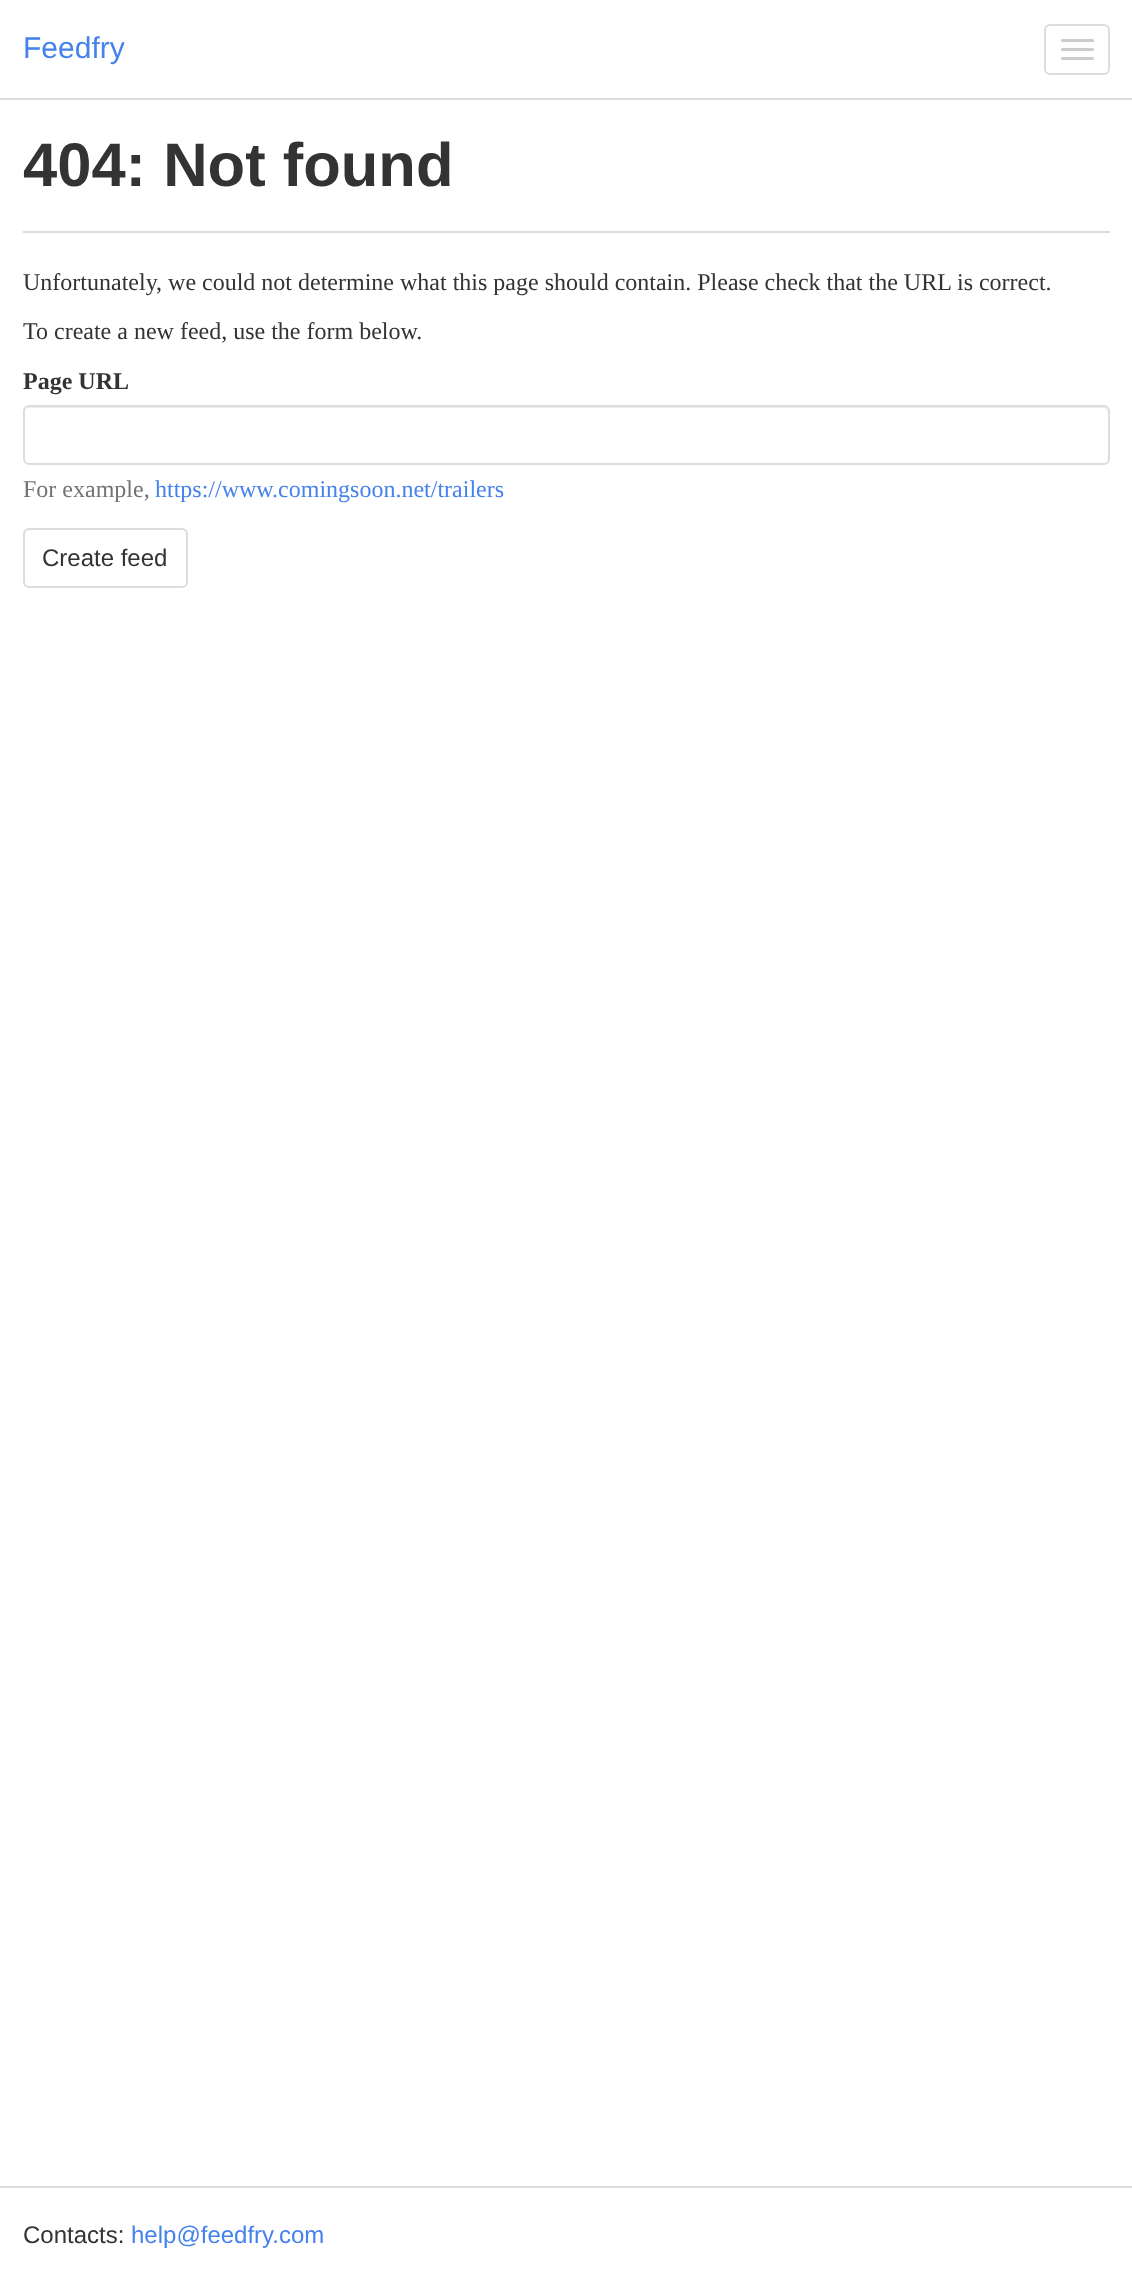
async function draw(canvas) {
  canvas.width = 1132;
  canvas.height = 2284;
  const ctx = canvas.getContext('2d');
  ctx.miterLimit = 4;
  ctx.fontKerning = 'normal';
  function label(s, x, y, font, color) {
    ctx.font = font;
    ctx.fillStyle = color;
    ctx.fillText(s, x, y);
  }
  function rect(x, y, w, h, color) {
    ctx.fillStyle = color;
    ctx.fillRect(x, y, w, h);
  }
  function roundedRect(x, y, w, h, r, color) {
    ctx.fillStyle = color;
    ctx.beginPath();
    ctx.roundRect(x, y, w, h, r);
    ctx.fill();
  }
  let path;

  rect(0, 0, 1132, 2284, '#fff');
  rect(0, 98, 1132, 2, '#ddd');
  label('Feedfry', 23, 58, '30px Liberation Sans', '#4582ec');
  ctx.beginPath();
  ctx.roundRect(1045, 25, 64, 49, 5);
  ctx.strokeStyle = '#ddd';
  ctx.lineWidth = 2;
  ctx.stroke();
  roundedRect(1061, 39, 33, 3, 1.5, '#ccc');
  roundedRect(1061, 48, 33, 3, 1.5, '#ccc');
  roundedRect(1061, 57, 33, 3, 1.5, '#ccc');
  rect(23, 231, 1087, 2, '#ddd');
  label('404: Not found', 23, 186, 'bold 61.5px Liberation Sans', '#333');
  label('Unfortunately, we could not determine what this page should contain. Please check that the URL is correct.', 23, 290, '24px Liberation Serif', '#333');
  label('To create a new feed, use the form below.', 23, 339, '24px Liberation Serif', '#333');
  label('Page URL', 23, 389, 'bold 24px Liberation Serif', '#333');
  ctx.fillStyle = '#ececec';
  path = new Path2D('M28 408H1104C1106 408 1108 410 1108 412V460L1107 463C1108 462 1109 460 1109 459V412C1109 409 1107 407 1104 407H29C26 407 24 409 24 412C24 410 26 408 28 408Z');
  ctx.fill(path);
  ctx.beginPath();
  ctx.roundRect(24, 406, 1085, 58, 5);
  ctx.stroke();
  label('For example,', 23, 497, '24px Liberation Serif', '#737373');
  label('https://www.comingsoon.net/trailers', 155, 497, '24px Liberation Serif', '#4582ec');
  ctx.beginPath();
  ctx.roundRect(24, 529, 163, 58, 5);
  ctx.stroke();
  label('Create feed', 42, 566, '24px Liberation Sans', '#333');
  rect(0, 2186, 1132, 2, '#ddd');
  label('Contacts:', 23, 2243, '24px Liberation Sans', '#333');
  label('help@feedfry.com', 131, 2243, '24px Liberation Sans', '#4582ec');
}

draw(document.querySelector('canvas'));
